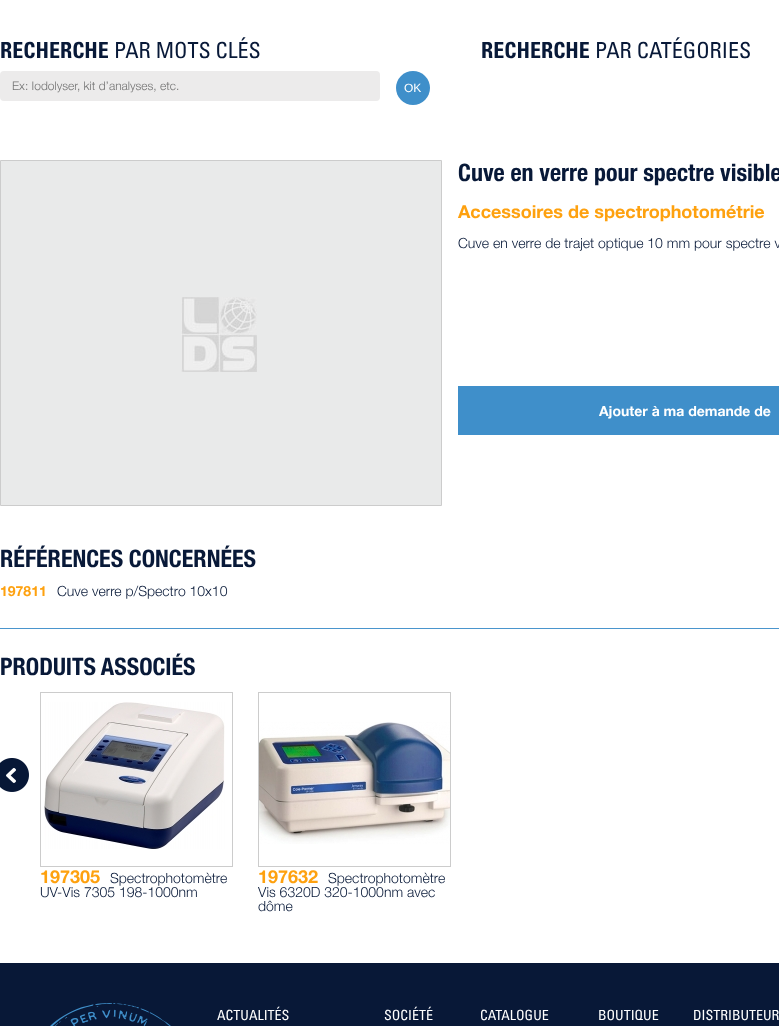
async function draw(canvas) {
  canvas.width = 779;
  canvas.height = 1026;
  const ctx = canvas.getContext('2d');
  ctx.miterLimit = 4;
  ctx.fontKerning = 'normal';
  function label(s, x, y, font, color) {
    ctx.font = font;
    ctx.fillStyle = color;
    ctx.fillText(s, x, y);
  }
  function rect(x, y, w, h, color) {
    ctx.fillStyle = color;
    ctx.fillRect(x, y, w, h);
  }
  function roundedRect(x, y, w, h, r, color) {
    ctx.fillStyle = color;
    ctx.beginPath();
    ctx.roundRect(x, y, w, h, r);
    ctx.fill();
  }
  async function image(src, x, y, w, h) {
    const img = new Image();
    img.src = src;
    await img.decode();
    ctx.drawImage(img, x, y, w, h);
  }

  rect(0, 0, 779, 1026, '#081837');
  rect(0, 0, 779, 963, '#fff');
  label('RECHERCHE', 0, 58, 'bold 22px "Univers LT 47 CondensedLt"', '#081938');
  label('PAR MOTS CLÉS', 114, 58, '22px "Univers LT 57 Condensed"', '#081938');
  roundedRect(0, 71, 380, 30, 4, '#ecebeb');
  label('Ex: Iodolyser, kit d’analyses, etc.', 12, 90, '300 12px Helvetica Neue', '#757575');
  ctx.fillStyle = '#3f8fca';
  ctx.beginPath();
  ctx.arc(413, 88, 17, 0, 2 * Math.PI);
  ctx.fill();
  label('OK', 404, 92, '12px Liberation Sans', '#fff');
  label('RECHERCHE', 481, 58, 'bold 22px "Univers LT 47 CondensedLt"', '#081938');
  label('PAR CATÉGORIES', 595, 58, '22px "Univers LT 57 Condensed"', '#081938');
  ctx.fillStyle = '#e9eaea';
  ctx.beginPath();
  ctx.rect(0.5, 160.5, 441, 345);
  ctx.fill();
  ctx.strokeStyle = '#ccc';
  ctx.stroke();
  await image('assets/img1.png', 181, 297, 76, 75);
  label('Cuve en verre pour spectre visible', 458, 181, 'bold 24px Helvetica Neue', '#081938');
  label('Accessoires de spectrophotométrie', 458, 218, 'bold 18px "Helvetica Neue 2"', '#fea10f');
  label('Cuve en verre de trajet optique 10 mm pour spectre v', 458, 248, '300 14px Helvetica Neue', '#081938');
  rect(458, 386, 321, 49, '#3f8fca');
  label('Ajouter à ma demande de', 599, 416, 'bold 14px "Helvetica Neue 2"', '#fff');
  label('RÉFÉRENCES CONCERNÉES', 0, 567, 'bold 24px Helvetica Neue', '#081938');
  label('197811', 0, 596, 'bold 14px "Helvetica Neue 2"', '#fea10f');
  label('Cuve verre p/Spectro 10x10', 57, 596, '300 14px Helvetica Neue', '#081938');
  rect(0, 628, 779, 1, '#4a95cd');
  label('PRODUITS ASSOCIÉS', 0, 675, 'bold 24px Helvetica Neue', '#081938');
  await image('assets/img2.png', 0, 758, 29, 34);
  await image('assets/img3.png', 44, 702, 181, 147);
  ctx.strokeRect(40.5, 692.5, 192, 174);
  label('197305', 40, 883, 'bold 18px "Helvetica Neue 2"', '#fea10f');
  label('Spectrophotomètre', 110, 883, '300 14px Helvetica Neue', '#081938');
  label('UV-Vis 7305 198-1000nm', 40, 897, '300 14px Helvetica Neue', '#081938');
  await image('assets/img4.png', 259, 722, 191, 122);
  ctx.strokeRect(258.5, 692.5, 192, 174);
  label('197632', 258, 883, 'bold 18px "Helvetica Neue 2"', '#fea10f');
  label('Spectrophotomètre', 328, 883, '300 14px Helvetica Neue', '#081938');
  label('Vis 6320D 320-1000nm avec', 258, 897, '300 14px Helvetica Neue', '#081938');
  label('dôme', 258, 911, '300 14px Helvetica Neue', '#081938');
  await image('assets/img5.png', 50, 1003, 121, 23);
  label('ACTUALITÉS', 217, 1020, '14px "Univers LT 57 Condensed"', '#fff');
  label('SOCIÉTÉ', 384, 1020, '14px "Univers LT 57 Condensed"', '#fff');
  label('CATALOGUE', 480, 1020, '14px "Univers LT 57 Condensed"', '#fff');
  label('BOUTIQUE', 598, 1020, '14px "Univers LT 57 Condensed"', '#fff');
  label('DISTRIBUTEUR', 693, 1020, '14px "Univers LT 57 Condensed"', '#fff');
}

draw(document.querySelector('canvas'));
